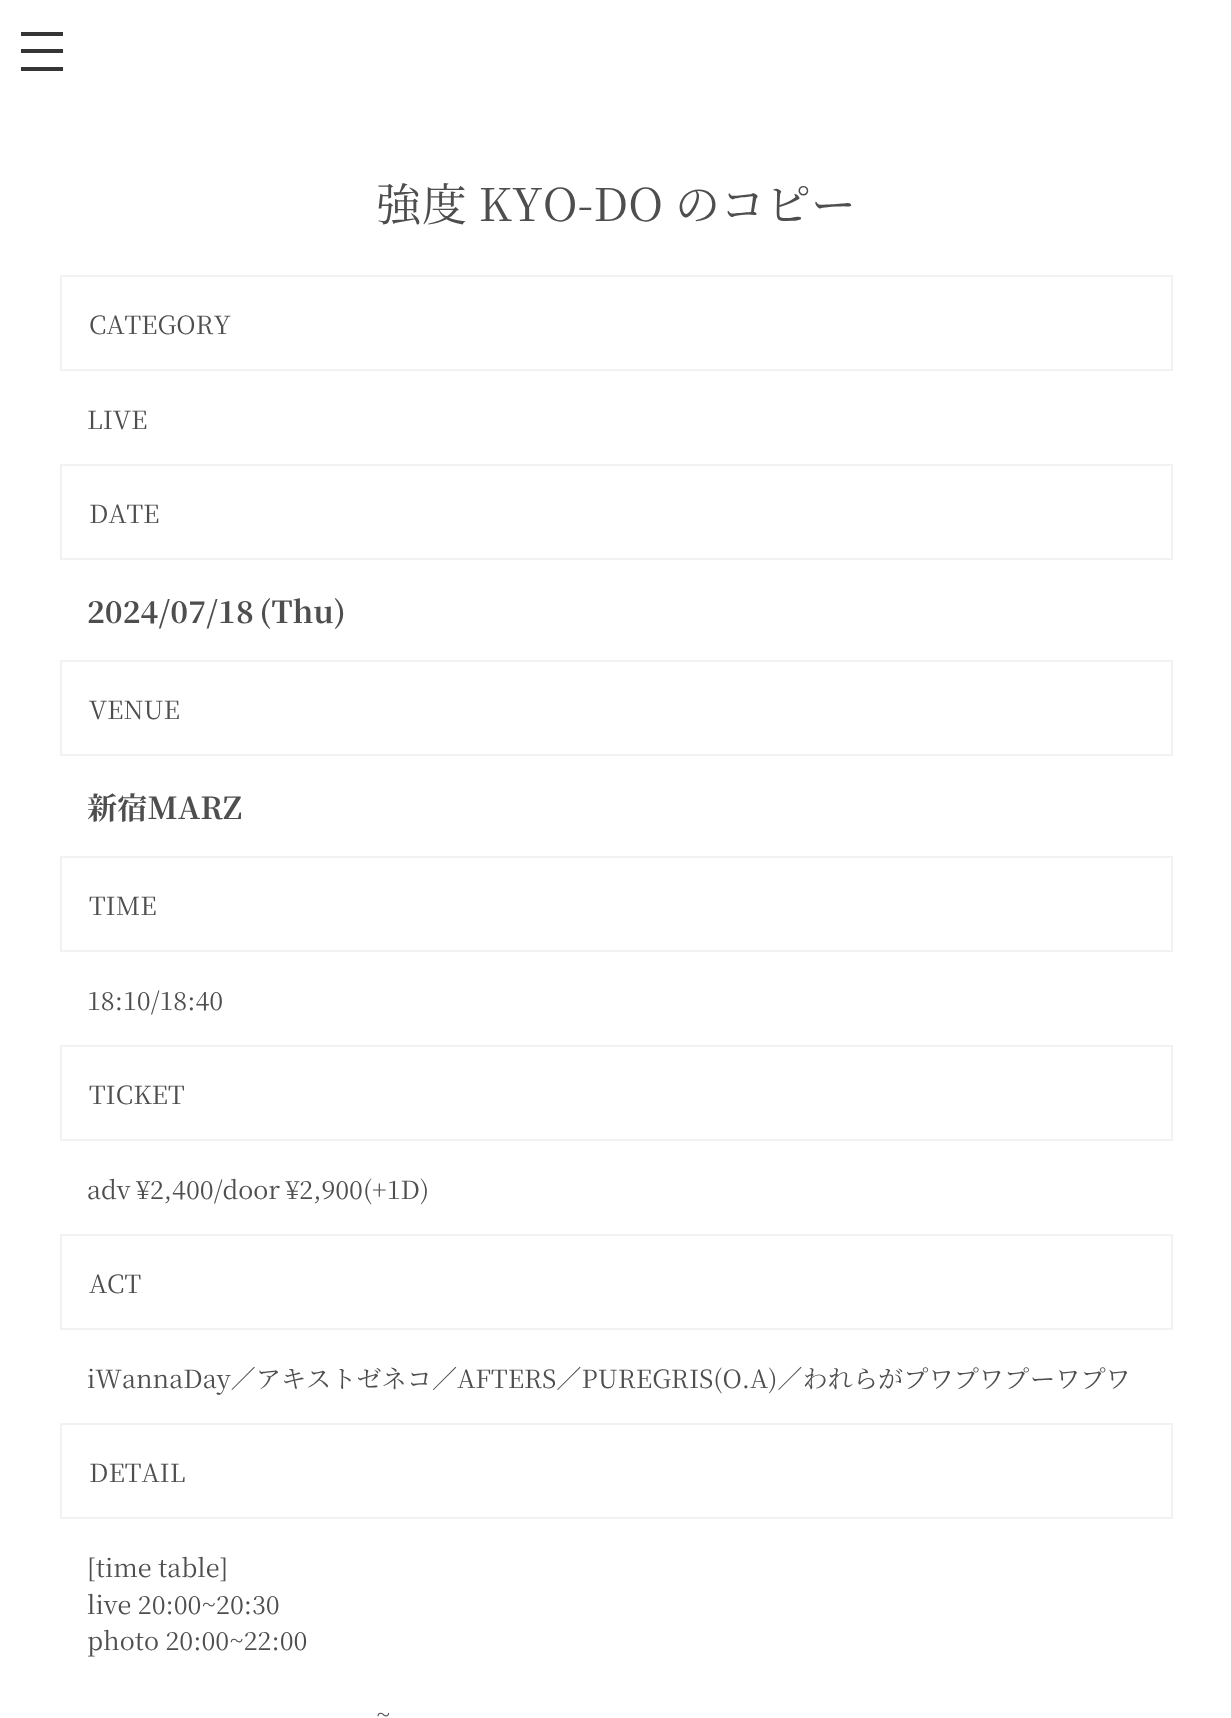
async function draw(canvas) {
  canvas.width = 1231;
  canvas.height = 1718;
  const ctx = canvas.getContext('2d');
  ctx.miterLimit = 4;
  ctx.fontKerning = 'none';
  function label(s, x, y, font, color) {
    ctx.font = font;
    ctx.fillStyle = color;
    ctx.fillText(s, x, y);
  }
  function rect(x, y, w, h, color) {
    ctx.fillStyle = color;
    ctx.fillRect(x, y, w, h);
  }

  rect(0, 0, 1231, 1718, '#fff');
  rect(21, 49, 42, 4, '#353535');
  rect(21, 32, 42, 4, '#353535');
  rect(21, 67, 42, 4, '#353535');
  label('強度 KYO-DO のコピー', 376, 221, '45.4px Noto Serif JP', '#4e4e4e');
  ctx.strokeStyle = '#f2f2f2';
  ctx.lineWidth = 2;
  ctx.strokeRect(61, 276, 1111, 94);
  label('CATEGORY', 89, 334, '25.2px Noto Serif JP', '#4e4e4e');
  label('LIVE', 87, 429, '25.2px Noto Serif JP', '#4e4e4e');
  ctx.strokeRect(61, 465, 1111, 94);
  label('DATE', 89, 523, '25.2px Noto Serif JP', '#4e4e4e');
  ctx.wordSpacing = '-2px';
  label('2024/07/18 (Thu)', 87, 623, 'bold 30.25px Noto Serif JP', '#4e4e4e');
  ctx.strokeRect(61, 661, 1111, 94);
  ctx.wordSpacing = '0px';
  label('VENUE', 89, 719, '25.2px Noto Serif JP', '#4e4e4e');
  label('新宿MARZ', 87, 819, 'bold 30.25px Noto Serif JP', '#4e4e4e');
  ctx.strokeRect(61, 857, 1111, 94);
  label('TIME', 89, 915, '25.2px Noto Serif JP', '#4e4e4e');
  label('18:10/18:40', 87, 1010, '25.2px Noto Serif JP', '#4e4e4e');
  ctx.strokeRect(61, 1046, 1111, 94);
  label('TICKET', 89, 1104, '25.2px Noto Serif JP', '#4e4e4e');
  ctx.wordSpacing = '-1px';
  label('adv ¥2,400/door ¥2,900(+1D)', 87, 1199, '25.2px Noto Serif JP', '#4e4e4e');
  ctx.strokeRect(61, 1235, 1111, 94);
  ctx.wordSpacing = '0px';
  label('ACT', 89, 1293, '25.2px Noto Serif JP', '#4e4e4e');
  label('iWannaDay／アキ', 87, 1388, '25.2px Noto Serif JP', '#4e4e4e');
  label('ストゼネコ／AFTERS／PUREGRIS(O.A)／われらがプワプワプ', 306, 1388, '25.2px Noto Serif JP', '#4e4e4e');
  label('ーワプワ', 1030, 1388, '25.2px Noto Serif JP', '#4e4e4e');
  ctx.strokeRect(61, 1424, 1111, 94);
  label('DETAIL', 89, 1482, '25.2px Noto Serif JP', '#4e4e4e');
  label('[time table]', 87, 1577, '25.2px Noto Serif JP', '#4e4e4e');
  label('live 20:00~20:30', 87, 1614, '25.2px Noto Serif JP', '#4e4e4e');
  label('photo 20:00~22:00', 87, 1650, '25.2px Noto Serif JP', '#4e4e4e');
  label('~', 376, 1724, '25.2px Noto Serif JP', '#4e4e4e');
}

draw(document.querySelector('canvas'));
